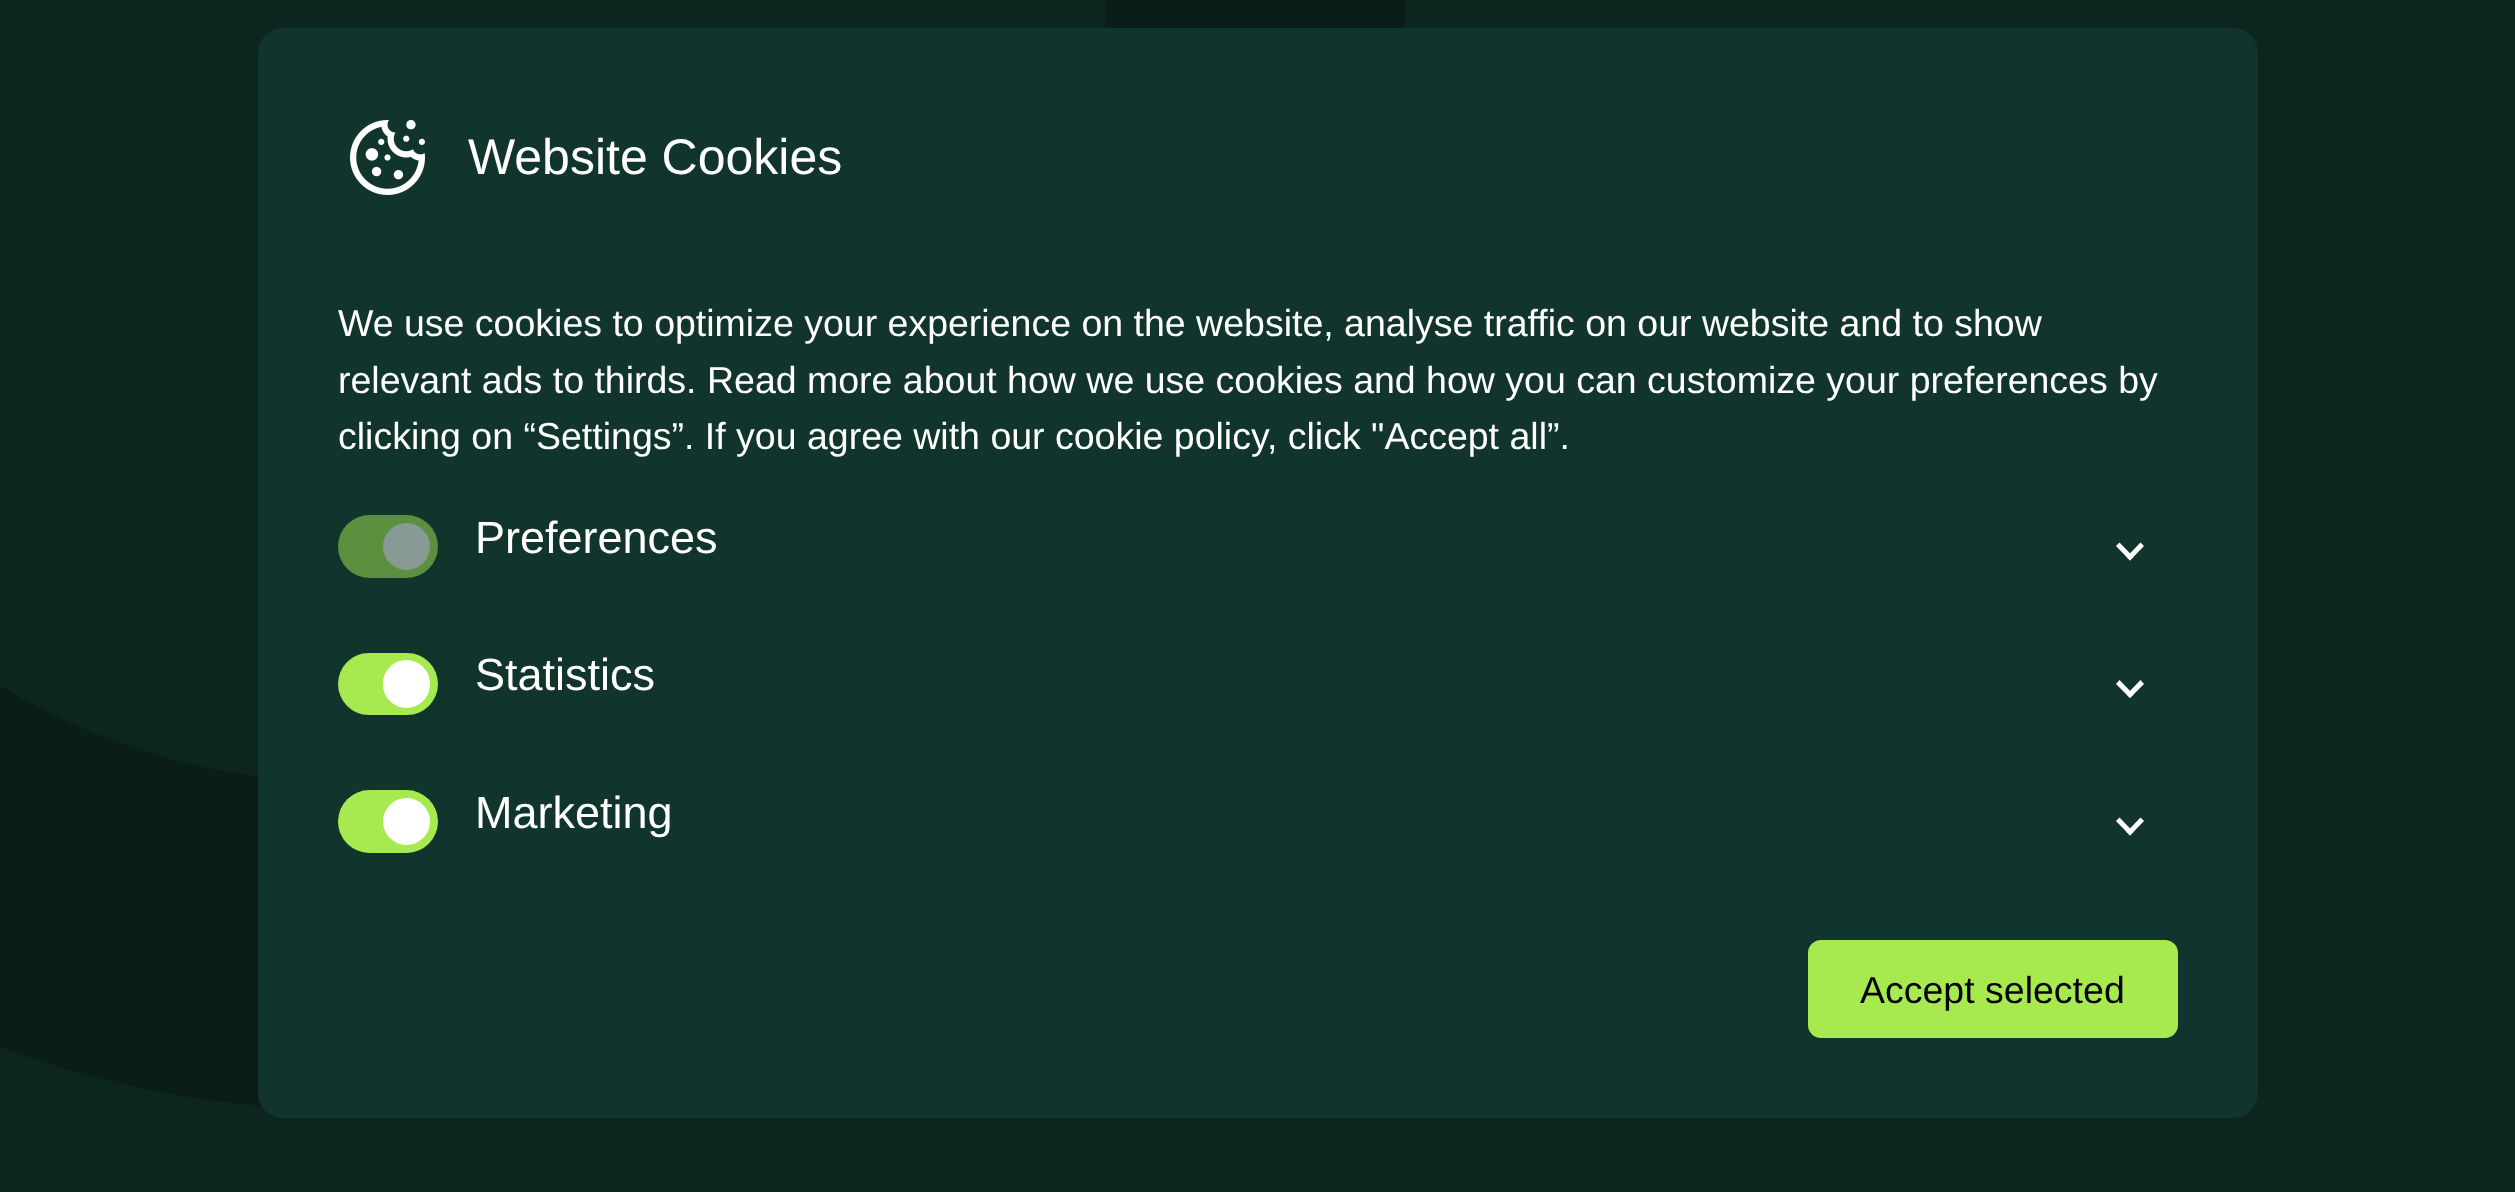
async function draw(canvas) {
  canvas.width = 2515;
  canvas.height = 1192;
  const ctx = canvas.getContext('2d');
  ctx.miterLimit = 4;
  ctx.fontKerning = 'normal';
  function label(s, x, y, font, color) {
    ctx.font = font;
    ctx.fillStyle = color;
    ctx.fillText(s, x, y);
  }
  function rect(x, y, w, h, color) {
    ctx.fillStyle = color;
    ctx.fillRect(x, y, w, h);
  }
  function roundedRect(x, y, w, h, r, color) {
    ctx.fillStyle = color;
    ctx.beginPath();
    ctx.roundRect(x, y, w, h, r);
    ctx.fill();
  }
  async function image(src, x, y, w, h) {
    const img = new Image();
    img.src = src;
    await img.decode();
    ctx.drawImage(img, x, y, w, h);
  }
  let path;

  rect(0, 0, 2515, 1192, '#0c251f');
  ctx.save();
  ctx.beginPath();
  ctx.rect(0, 0, 1405, 1108);
  ctx.clip();
  path = new Path2D('M890.5-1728L1245.5-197C1325 146 1199.5 504 923.5 722.5L868 766C518 1043.5 11.5 996-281.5 659L-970-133.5C-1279-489-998-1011-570.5-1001');
  ctx.strokeStyle = '#0a1d19';
  ctx.lineWidth = 326.6;
  ctx.stroke(path);
  ctx.restore();
  roundedRect(258, 28, 2000, 1090, 25, '#11352c');
  await image('assets/img1.png', 350, 120, 75, 75);
  label('Website Cookies', 468, 174, '50px Liberation Sans', '#fff');
  label('We use cookies to optimize your experience on the website, analyse traffic on our website and to show', 338, 336, '37.5px Liberation Sans', '#fff');
  label('relevant ads to thirds. Read more about how we use cookies and how you can customize your preferences by', 338, 393, '37.5px Liberation Sans', '#fff');
  label('clicking on “Settings”. If you agree with our cookie policy, click "Accept all”.', 338, 449, '37.5px Liberation Sans', '#fff');
  roundedRect(338, 515, 100, 63, 31.5, '#5c903e');
  ctx.fillStyle = '#889a96';
  ctx.beginPath();
  ctx.arc(406.5, 546.5, 23.5, 0, 2 * Math.PI);
  ctx.fill();
  label('Preferences', 475, 553, '45px Liberation Sans', '#fff');
  path = new Path2D('M2140.5 542.5L2144 546L2130 560.5L2126.5 557Z');
  ctx.fill(path);
  path = new Path2D('M2119.5 542.5L2133.5 557L2130 560.5L2116 546Z');
  ctx.fill(path);
  roundedRect(338, 653, 100, 62, 31, '#a7ea50');
  roundedRect(383, 660, 47, 48, 23.5, '#fff');
  label('Statistics', 475, 690, '45px Liberation Sans', '#fff');
  path = new Path2D('M2140.5 680L2144 684L2130 698L2126.5 694.5Z');
  ctx.fill(path);
  path = new Path2D('M2119.5 680L2133.5 694.5L2130 698L2116 684Z');
  ctx.fill(path);
  roundedRect(338, 790, 100, 63, 31.5, '#a7ea50');
  ctx.fillStyle = '#fff';
  ctx.beginPath();
  ctx.arc(406.5, 821.5, 23.5, 0, 2 * Math.PI);
  ctx.fill();
  label('Marketing', 475, 828, '45px Liberation Sans', '#fff');
  path = new Path2D('M2140.5 817.5L2144 821L2130 835.5L2126.5 832Z');
  ctx.fill(path);
  path = new Path2D('M2119.5 817.5L2133.5 832L2130 835.5L2116 821Z');
  ctx.fill(path);
  ctx.fillStyle = '#a7ea50';
  ctx.beginPath();
  ctx.roundRect(1809.5, 941.5, 367, 95, 11.5);
  ctx.fill();
  ctx.strokeStyle = '#a7ea50';
  ctx.lineWidth = 3;
  ctx.stroke();
  label('Accept selected', 1860, 1003, '37.5px Liberation Sans', '#000');
}

draw(document.querySelector('canvas'));
